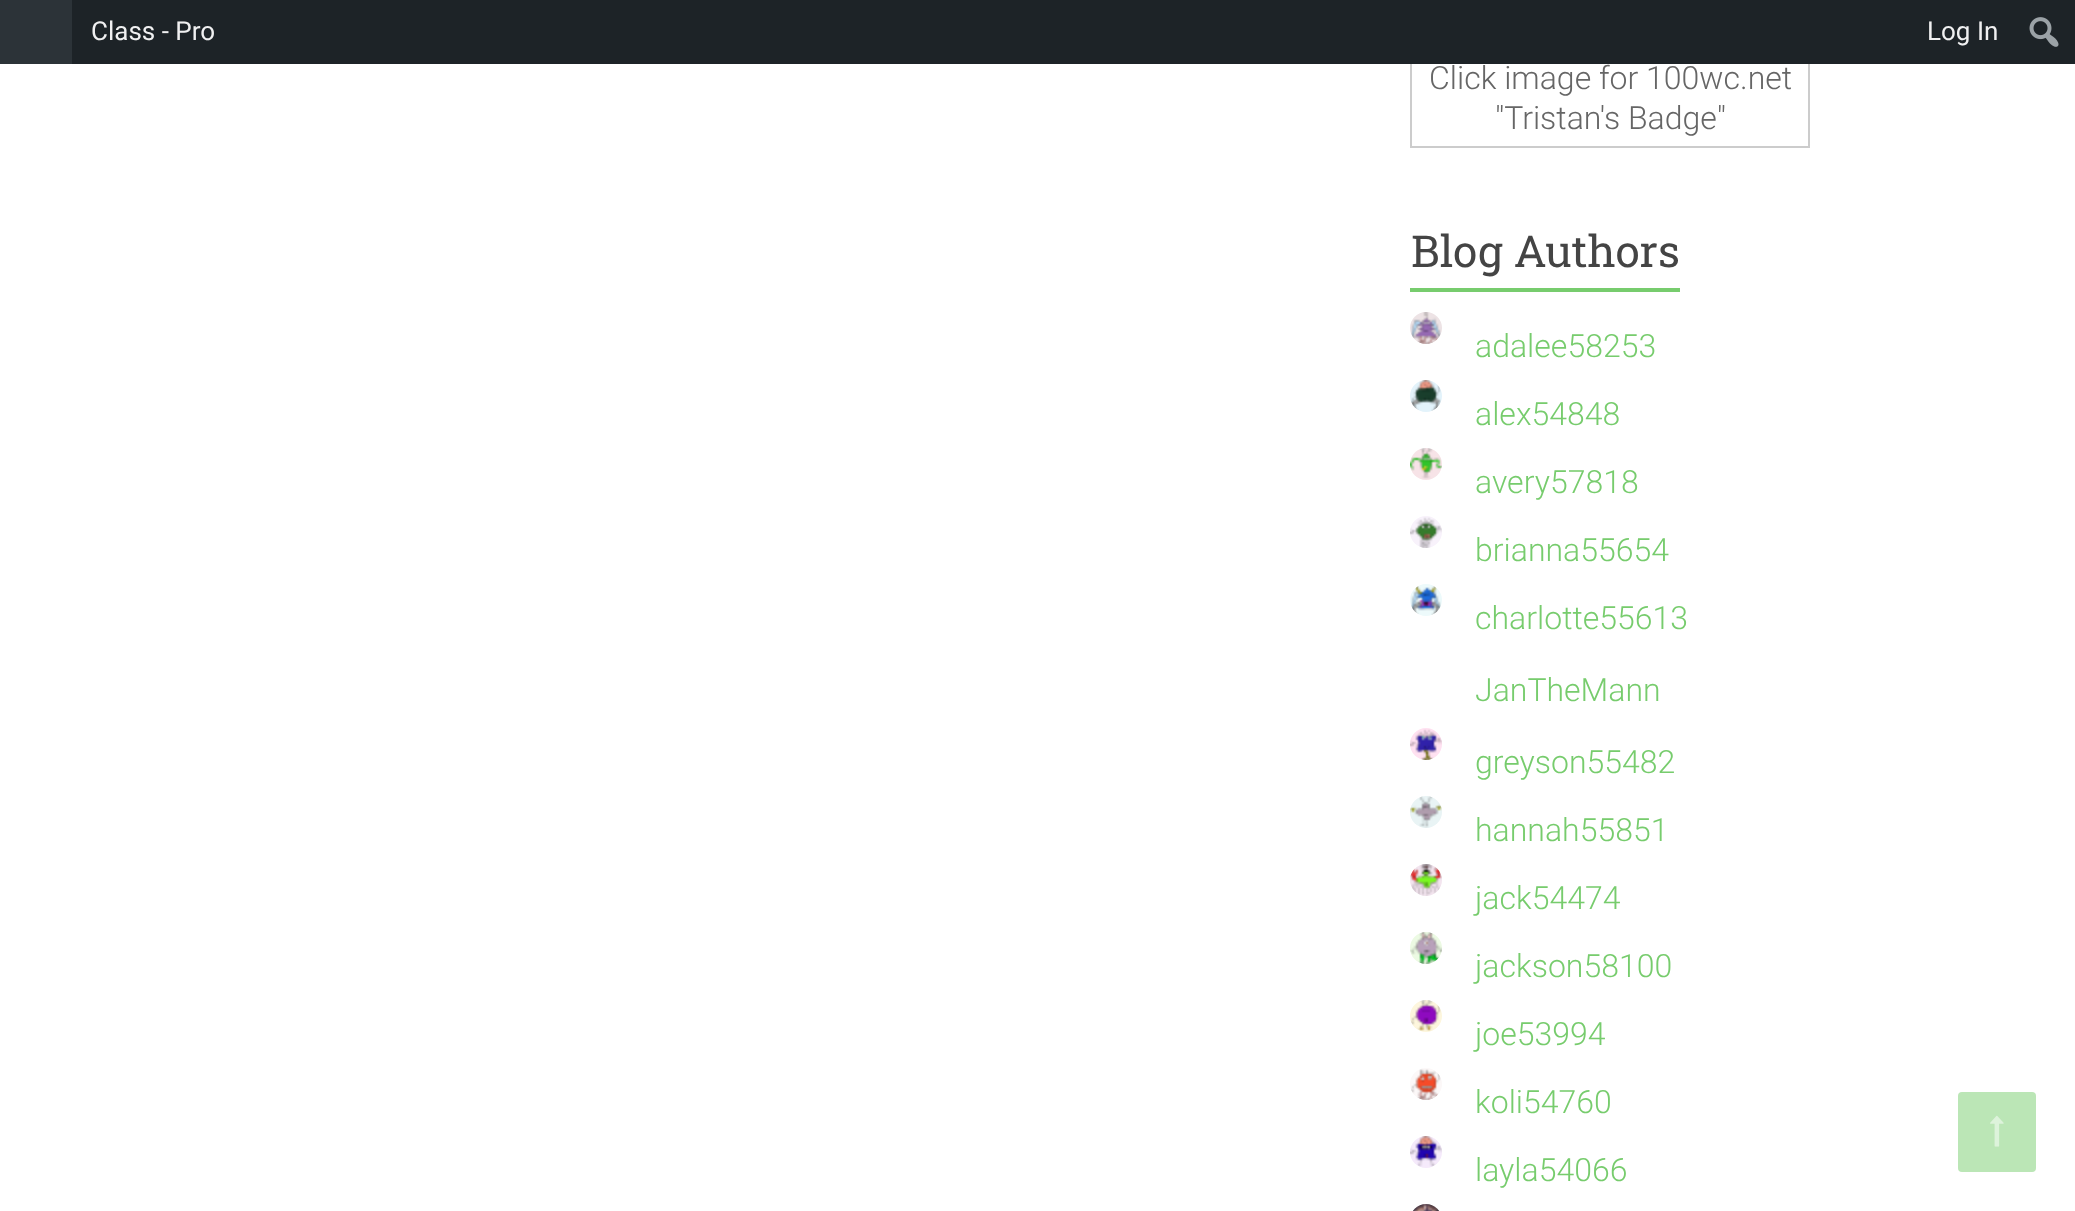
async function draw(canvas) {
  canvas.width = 2075;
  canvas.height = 1211;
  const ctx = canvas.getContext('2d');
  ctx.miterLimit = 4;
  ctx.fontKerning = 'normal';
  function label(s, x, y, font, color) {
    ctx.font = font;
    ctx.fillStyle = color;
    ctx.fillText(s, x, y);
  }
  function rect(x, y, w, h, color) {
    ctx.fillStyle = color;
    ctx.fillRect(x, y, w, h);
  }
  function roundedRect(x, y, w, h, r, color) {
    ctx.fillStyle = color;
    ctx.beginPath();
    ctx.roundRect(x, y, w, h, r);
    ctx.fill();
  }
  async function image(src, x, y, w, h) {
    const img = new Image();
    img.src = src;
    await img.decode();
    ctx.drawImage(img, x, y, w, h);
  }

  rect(0, 0, 2075, 1211, '#fff');
  ctx.strokeStyle = '#ccc';
  ctx.lineWidth = 2;
  ctx.strokeRect(1411, -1, 398, 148);
  rect(72, 0, 2003, 64, '#1d2327');
  rect(0, 0, 72, 64, '#2c3338');
  label('Class - Pro', 91, 40, '26px Roboto', '#f0f0f1');
  label('Log In', 1927, 40, '26px Roboto', '#f0f0f1');
  await image('assets/img1.png', 2029, 17, 30, 30);
  label('Click image for 100wc.net', 1429, 89, '300 32px Roboto', '#666');
  label('"Tristan\'s Badge"', 1495, 129, '300 32px Roboto', '#666');
  label('Blog Authors', 1411, 267, '44px Roboto Slab', '#444');
  rect(1410, 288, 270, 4, '#77cc6d');
  await image('assets/img2.png', 1410, 312, 32, 32);
  label('adalee58253', 1475, 357, '300 32px Roboto', '#77cc6d');
  await image('assets/img3.png', 1410, 380, 32, 32);
  label('alex54848', 1475, 425, '300 32px Roboto', '#77cc6d');
  await image('assets/img4.png', 1410, 448, 32, 32);
  label('avery57818', 1475, 493, '300 32px Roboto', '#77cc6d');
  await image('assets/img5.png', 1410, 516, 32, 32);
  label('brianna55654', 1475, 561, '300 32px Roboto', '#77cc6d');
  await image('assets/img6.png', 1410, 584, 32, 32);
  label('charlotte55613', 1475, 629, '300 32px Roboto', '#77cc6d');
  label('JanTheMann', 1475, 701, '300 32px Roboto', '#77cc6d');
  await image('assets/img7.png', 1410, 728, 32, 32);
  label('greyson55482', 1475, 773, '300 32px Roboto', '#77cc6d');
  await image('assets/img8.png', 1410, 796, 32, 32);
  label('hannah55851', 1475, 841, '300 32px Roboto', '#77cc6d');
  await image('assets/img9.png', 1410, 864, 32, 32);
  label('jack54474', 1475, 909, '300 32px Roboto', '#77cc6d');
  await image('assets/img10.png', 1410, 932, 32, 32);
  label('jackson58100', 1475, 977, '300 32px Roboto', '#77cc6d');
  await image('assets/img11.png', 1410, 1000, 32, 32);
  label('joe53994', 1475, 1045, '300 32px Roboto', '#77cc6d');
  await image('assets/img12.png', 1410, 1068, 32, 32);
  label('koli54760', 1475, 1113, '300 32px Roboto', '#77cc6d');
  await image('assets/img13.png', 1410, 1136, 32, 32);
  label('layla54066', 1475, 1181, '300 32px Roboto', '#77cc6d');
  await image('assets/img14.png', 1413, 1204, 26, 7);
  roundedRect(1958, 1092, 78, 80, 4, '#bbe6b6');
  await image('assets/img15.png', 1990, 1115, 14, 32);
}

draw(document.querySelector('canvas'));
